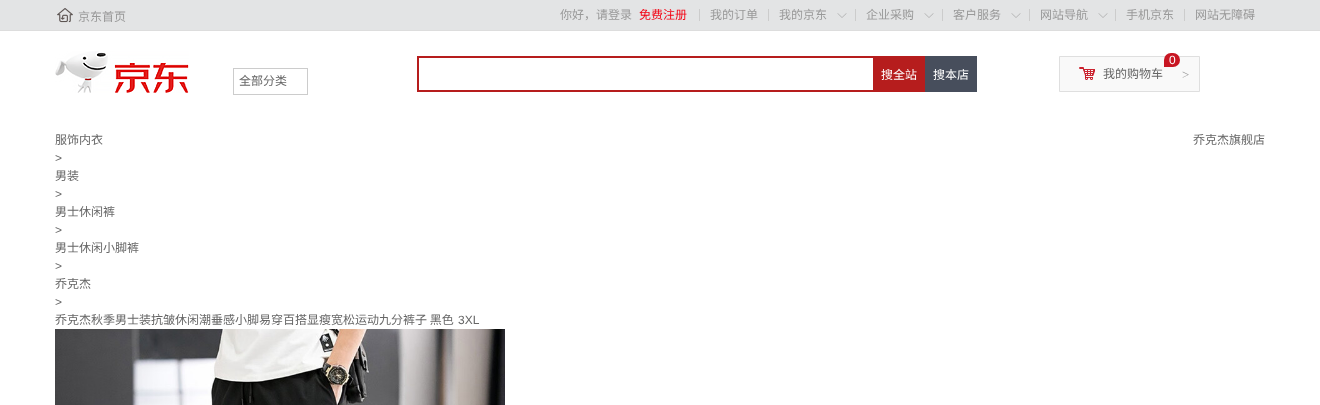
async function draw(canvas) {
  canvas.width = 1320;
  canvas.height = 405;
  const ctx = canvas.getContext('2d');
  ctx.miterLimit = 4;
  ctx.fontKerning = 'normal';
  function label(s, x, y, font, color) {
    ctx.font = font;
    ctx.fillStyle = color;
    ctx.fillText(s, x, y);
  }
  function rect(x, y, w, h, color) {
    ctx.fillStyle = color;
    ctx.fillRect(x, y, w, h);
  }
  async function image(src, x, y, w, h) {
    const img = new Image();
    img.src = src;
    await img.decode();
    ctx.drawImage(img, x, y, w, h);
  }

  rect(0, 0, 1320, 405, '#fff');
  rect(0, 0, 1320, 30, '#e3e4e5');
  rect(0, 30, 1320, 1, '#ddd');
  await image('assets/img1.png', 57, 8, 16, 15);
  label('京东首页', 78, 21, '12px Noto Sans CJK SC', '#999');
  label('你好，请登录', 560, 19, '12px Noto Sans CJK SC', '#999');
  label('免费注册', 639, 19, '12px Noto Sans CJK SC', '#f30213');
  rect(699, 9, 1, 12, '#ccc');
  label('我的订单', 710, 19, '12px Noto Sans CJK SC', '#999');
  rect(768, 9, 1, 12, '#ccc');
  label('我的京东', 779, 19, '12px Noto Sans CJK SC', '#999');
  await image('assets/img2.png', 837, 13, 10, 5);
  rect(855, 9, 1, 12, '#ccc');
  label('企业采购', 866, 19, '12px Noto Sans CJK SC', '#999');
  await image('assets/img2.png', 924, 13, 10, 5);
  rect(942, 9, 1, 12, '#ccc');
  label('客户服务', 953, 19, '12px Noto Sans CJK SC', '#999');
  await image('assets/img2.png', 1011, 13, 10, 5);
  rect(1029, 9, 1, 12, '#ccc');
  label('网站导航', 1040, 19, '12px Noto Sans CJK SC', '#999');
  await image('assets/img2.png', 1098, 13, 10, 5);
  rect(1115, 9, 1, 12, '#ccc');
  label('手机京东', 1126, 19, '12px Noto Sans CJK SC', '#999');
  rect(1184, 9, 1, 12, '#ccc');
  label('网站无障碍', 1195, 19, '12px Noto Sans CJK SC', '#999');
  await image('assets/img3.png', 55, 51, 134, 42);
  ctx.strokeStyle = '#ccc';
  ctx.strokeRect(233.5, 68.5, 74, 26);
  label('全部分类', 239, 85, '12px Noto Sans CJK SC', '#666');
  rect(417, 56, 456, 2, '#b61d1d');
  rect(417, 90, 456, 2, '#b61d1d');
  rect(417, 56, 2, 36, '#b61d1d');
  rect(873, 56, 52, 36, '#b61d1d');
  label('搜全站', 881, 79, '12px Noto Sans CJK SC', '#fff');
  rect(925, 56, 52, 36, '#474e5c');
  label('搜本店', 933, 79, '12px Noto Sans CJK SC', '#fff');
  ctx.fillStyle = '#f9f9f9';
  ctx.beginPath();
  ctx.rect(1059.5, 56.5, 140, 35);
  ctx.fill();
  ctx.strokeStyle = '#dfdfdf';
  ctx.stroke();
  ctx.fillStyle = '#c81623';
  ctx.beginPath();
  ctx.roundRect(1164, 53, 16, 14, [7, 7, 7, 0]);
  ctx.fill();
  label('0', 1169, 64, '12px Liberation Sans', '#fff');
  await image('assets/img4.png', 1079, 67, 16, 13);
  label('我的购物车', 1103, 78, '12px Noto Sans CJK SC', '#666');
  label('>', 1182, 79, '13px Liberation Serif', '#999');
  label('服饰内衣', 55, 144, '12px Noto Sans CJK SC', '#666');
  label('>', 55, 162, '12px Liberation Sans', '#666');
  label('男装', 55, 180, '12px Noto Sans CJK SC', '#666');
  label('>', 55, 198, '12px Liberation Sans', '#666');
  label('男士休闲裤', 55, 216, '12px Noto Sans CJK SC', '#666');
  label('>', 55, 234, '12px Liberation Sans', '#666');
  label('男士休闲小脚裤', 55, 252, '12px Noto Sans CJK SC', '#666');
  label('>', 55, 270, '12px Liberation Sans', '#666');
  label('乔克杰', 55, 288, '12px Noto Sans CJK SC', '#666');
  label('>', 55, 306, '12px Liberation Sans', '#666');
  label('乔克杰秋季男士装抗皱休闲潮垂感小脚易穿百搭显瘦宽松运动九分裤子 黑色', 55, 324, '12px Noto Sans CJK SC', '#666');
  label('3XL', 458, 324, '12px Liberation Sans', '#666');
  label('乔克杰旗舰店', 1193, 144, '12px Noto Sans CJK SC', '#666');
  await image('assets/img5.png', 55, 329, 450, 76);
}

draw(document.querySelector('canvas'));
